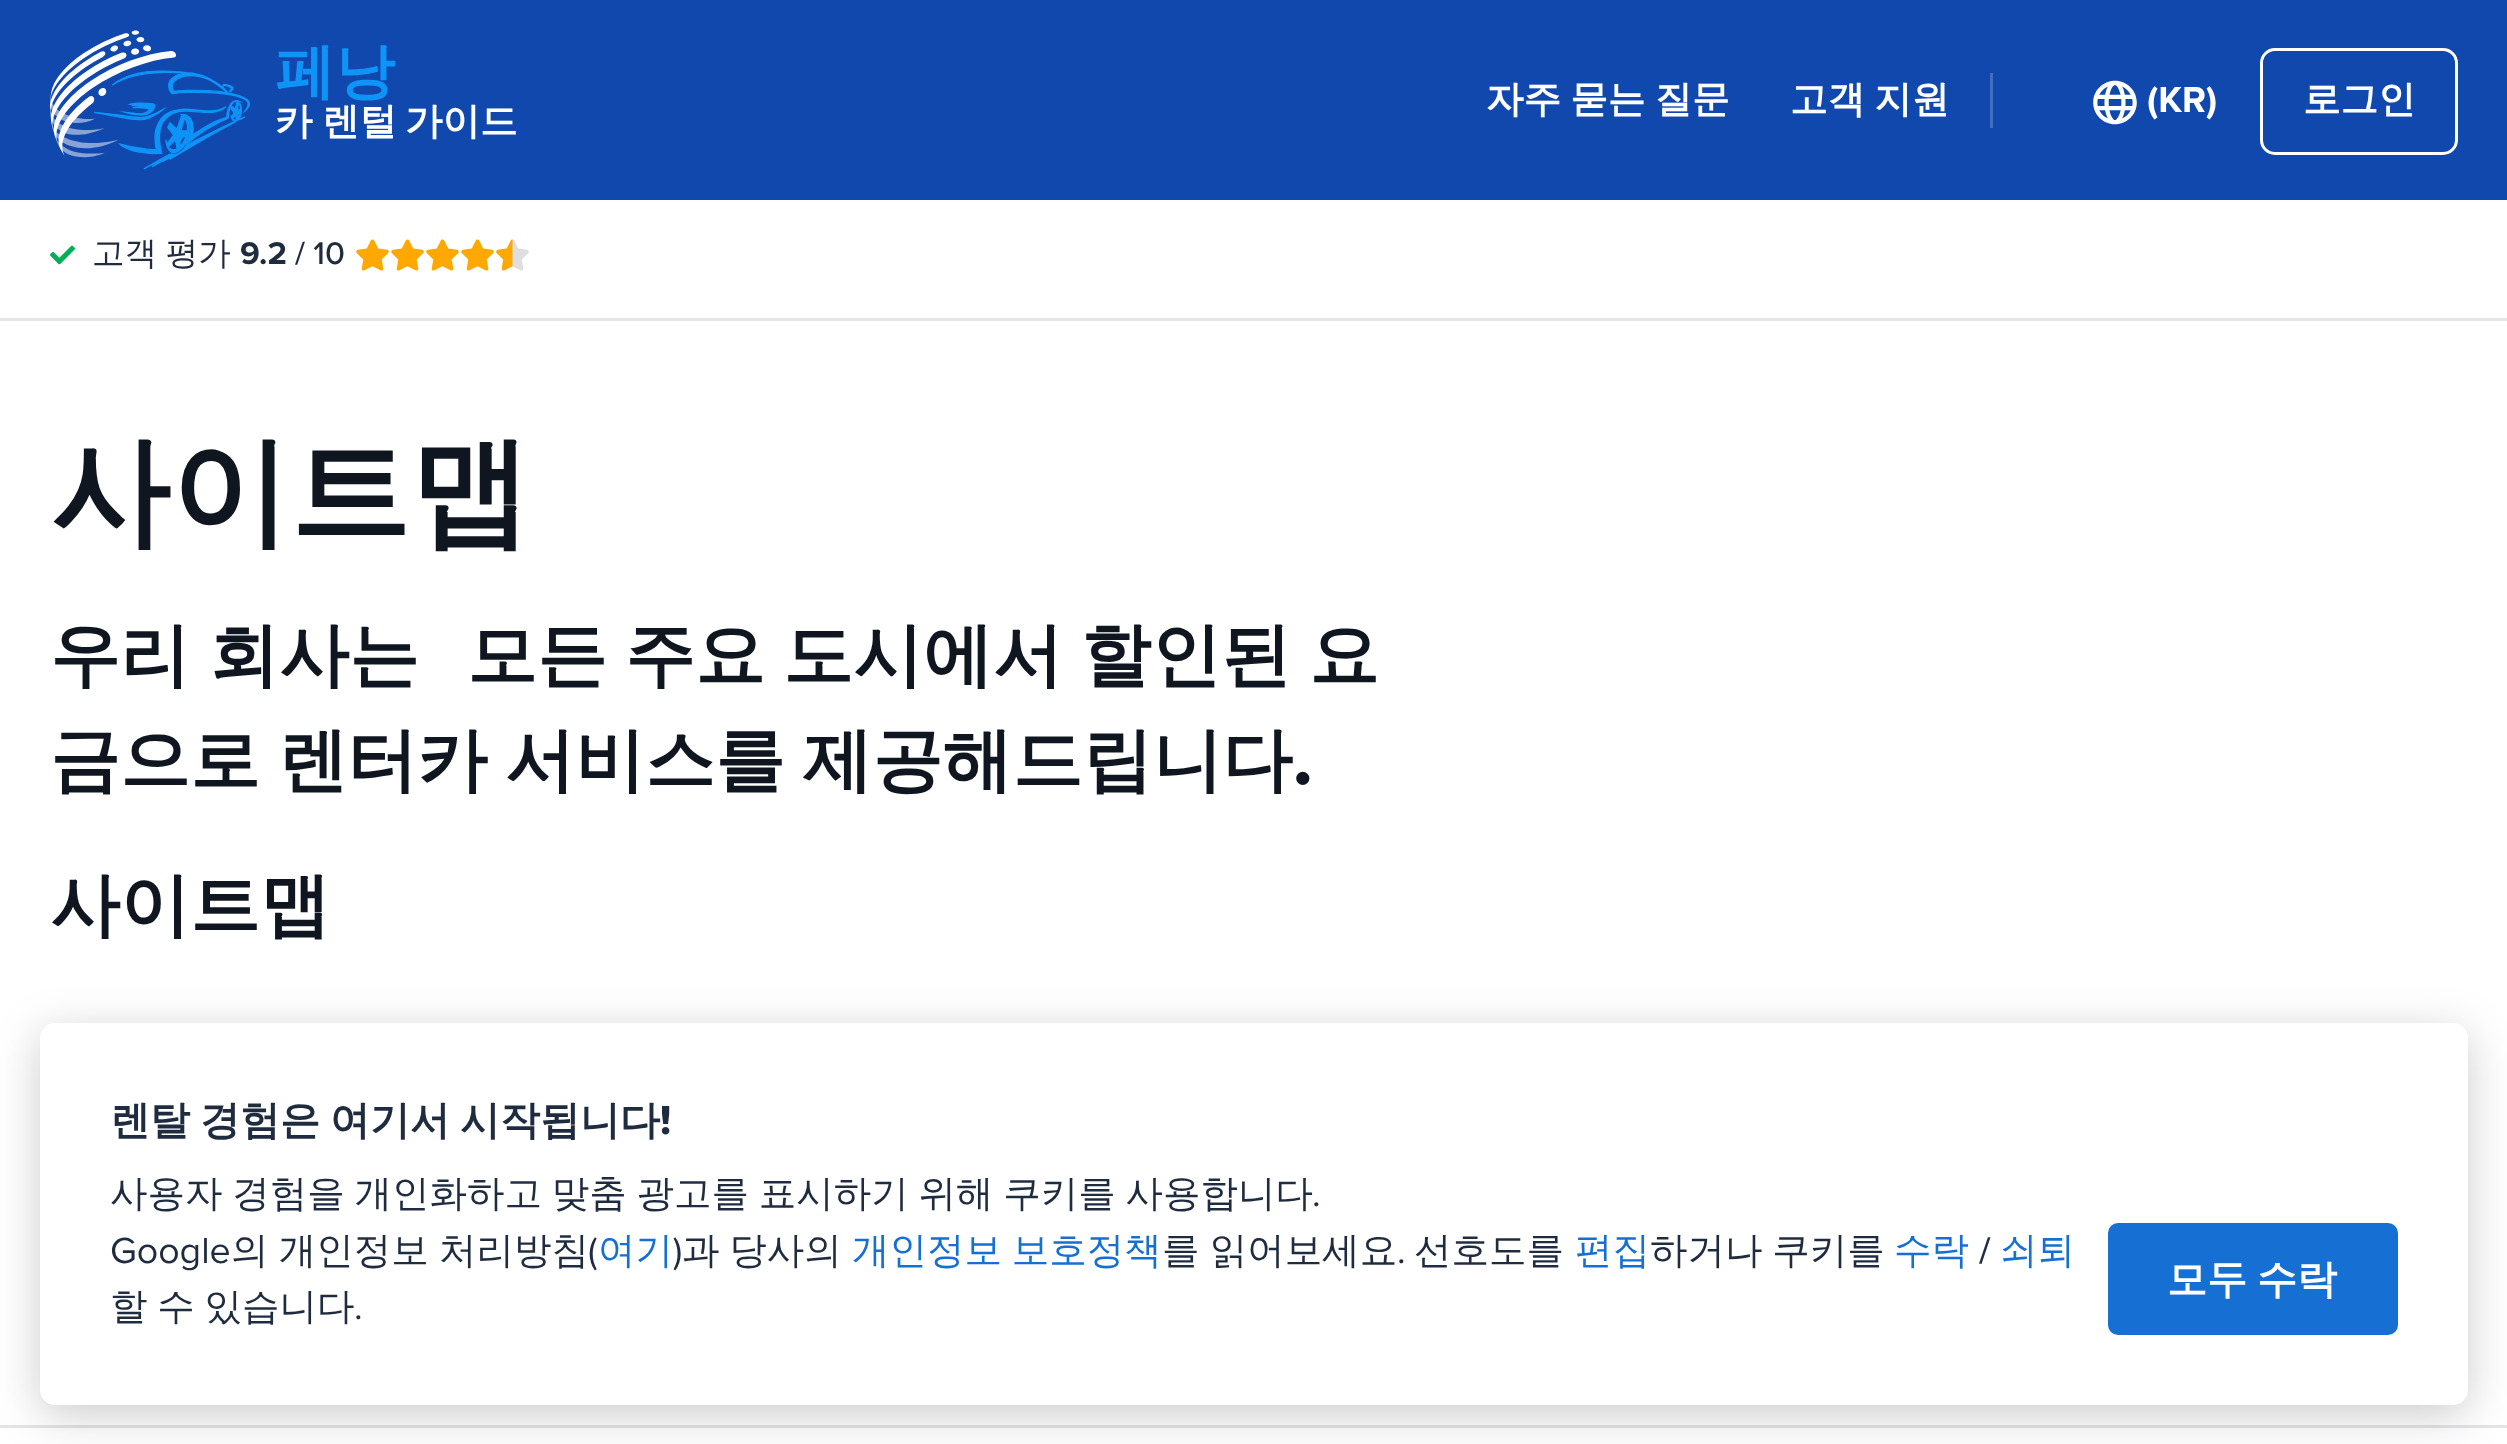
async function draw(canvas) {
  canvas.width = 2507;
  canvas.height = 1444;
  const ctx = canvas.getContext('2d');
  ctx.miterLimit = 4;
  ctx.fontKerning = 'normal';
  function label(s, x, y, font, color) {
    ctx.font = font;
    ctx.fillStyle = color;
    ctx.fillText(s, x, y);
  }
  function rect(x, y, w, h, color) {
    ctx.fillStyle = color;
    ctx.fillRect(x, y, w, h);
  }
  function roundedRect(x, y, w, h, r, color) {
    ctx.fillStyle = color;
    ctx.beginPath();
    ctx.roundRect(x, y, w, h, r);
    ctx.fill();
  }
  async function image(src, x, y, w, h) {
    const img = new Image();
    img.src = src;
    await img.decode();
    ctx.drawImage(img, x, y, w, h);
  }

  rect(0, 0, 2507, 1444, '#fff');
  rect(0, 0, 2507, 200, '#1148ad');
  await image('assets/img1.png', 50, 30, 200, 140);
  label('페낭', 275, 92, 'bold 60px WenQuanYi Zen Hei', '#0e93f7');
  ctx.wordSpacing = '-2px';
  label('카 렌털', 275, 134, 'bold 37.5px WenQuanYi Zen Hei', '#fff');
  ctx.wordSpacing = '0px';
  label('가이드', 405, 134, 'bold 37.5px WenQuanYi Zen Hei', '#fff');
  rect(1990, 73, 3, 55, '#416dbd');
  ctx.wordSpacing = '-2px';
  label('자주 묻는 질문', 1486, 112, 'bold 37.5px WenQuanYi Zen Hei', '#fff');
  label('고객 지원', 1790, 112, 'bold 37.5px WenQuanYi Zen Hei', '#fff');
  await image('assets/img2.png', 2093, 80, 44, 45);
  ctx.wordSpacing = '0px';
  label('(KR)', 2147, 112, 'bold 37.5px Proxima Nova', '#fff');
  ctx.beginPath();
  ctx.roundRect(2261.5, 49.5, 195, 104, 13.5);
  ctx.strokeStyle = '#fff';
  ctx.lineWidth = 3;
  ctx.stroke();
  label('로그인', 2303, 112, 'bold 37.5px WenQuanYi Zen Hei', '#fff');
  rect(0, 318, 2507, 3, '#e3e6e8');
  await image('assets/img3.png', 50, 245, 25, 20);
  ctx.wordSpacing = '-1px';
  label('고객 평가', 92, 264, '500 32.5px WenQuanYi Zen Hei', '#1f2b3e');
  ctx.wordSpacing = '0px';
  label('9.2', 240, 264, 'bold 32.5px Proxima Nova', '#1f2b3e');
  label('/ 10', 295, 264, '500 32.5px Proxima Nova', '#1f2b3e');
  await image('assets/img4.png', 356, 239, 33, 32);
  await image('assets/img4.png', 391, 239, 33, 32);
  await image('assets/img4.png', 426, 239, 33, 32);
  await image('assets/img4.png', 461, 239, 33, 32);
  await image('assets/img5.png', 496, 239, 33, 32);
  await image('assets/img6.png', 496, 239, 17, 32);
  label('사이트맵', 50, 533, 'bold 120px WenQuanYi Zen Hei', '#10161f');
  ctx.wordSpacing = '-2px';
  label('우리 회사는', 50, 679, 'bold 70px WenQuanYi Zen Hei', '#10161f');
  ctx.wordSpacing = '-3px';
  label('모든 주요 도시에서 할인된 요', 467, 679, 'bold 70px WenQuanYi Zen Hei', '#10161f');
  ctx.wordSpacing = '-3.5px';
  label('금으로 렌터카 서비스를 제공해드립니다', 50, 784, 'bold 70px WenQuanYi Zen Hei', '#10161f');
  ctx.wordSpacing = '0px';
  label('.', 1293, 784, '800 70px Gilroy', '#10161f');
  label('사이트맵', 50, 929, 'bold 70px WenQuanYi Zen Hei', '#10161f');
  rect(0, 1425, 2507, 3, '#e3e6e8');
  ctx.fillStyle = '#00000033';
  ctx.filter = 'blur(22.5px)';
  ctx.beginPath();
  ctx.roundRect(40, 1033, 2428, 382, 15);
  ctx.fill();
  ctx.filter = 'none';
  roundedRect(40, 1023, 2428, 382, 15, '#fff');
  ctx.wordSpacing = '-2px';
  label('렌탈 경험은 여기서 시작됩니다', 110, 1134, 'bold 40px WenQuanYi Zen Hei', '#1f2b3e');
  ctx.wordSpacing = '0px';
  label('!', 660, 1134, '800 40px Gilroy', '#1f2b3e');
  ctx.wordSpacing = '-1.5px';
  label('사용자 경험을 개인화하고 맞춤 광고를 표시하기 위해 쿠키를 사용합니다', 110, 1206, '500 37.5px WenQuanYi Zen Hei', '#1f2b3e');
  ctx.wordSpacing = '0px';
  label('.', 1312, 1206, '37.5px Proxima Nova', '#1f2b3e');
  label('Google', 110, 1263, '37.5px Proxima Nova', '#1f2b3e');
  ctx.wordSpacing = '-1px';
  label('의 개인정보 처리방침', 231, 1263, '500 37.5px WenQuanYi Zen Hei', '#1f2b3e');
  ctx.wordSpacing = '0px';
  label('(', 588, 1263, '37.5px Proxima Nova', '#1f2b3e');
  label('여기', 598, 1263, '500 37.5px WenQuanYi Zen Hei', '#1670d3');
  label(')', 673, 1263, '37.5px Proxima Nova', '#1f2b3e');
  ctx.wordSpacing = '-1.5px';
  label('과 당사의', 682, 1263, '500 37.5px WenQuanYi Zen Hei', '#1f2b3e');
  label('개인정보 보호정책', 852, 1263, '500 37.5px WenQuanYi Zen Hei', '#1670d3');
  ctx.wordSpacing = '-1px';
  label('를 읽어보세요', 1162, 1263, '500 37.5px WenQuanYi Zen Hei', '#1f2b3e');
  ctx.wordSpacing = '0px';
  label('.', 1397, 1263, '37.5px Proxima Nova', '#1f2b3e');
  label('선호도를', 1414, 1263, '500 37.5px WenQuanYi Zen Hei', '#1f2b3e');
  label('편집', 1575, 1263, '500 37.5px WenQuanYi Zen Hei', '#1670d3');
  ctx.wordSpacing = '-1.5px';
  label('하거나 쿠키를', 1650, 1263, '500 37.5px WenQuanYi Zen Hei', '#1f2b3e');
  ctx.wordSpacing = '0px';
  label('수락', 1894, 1263, '500 37.5px WenQuanYi Zen Hei', '#1670d3');
  label('/', 1979, 1263, '500 37.5px Proxima Nova', '#1f2b3e');
  label('쇠퇴', 2000, 1263, '500 37.5px WenQuanYi Zen Hei', '#1670d3');
  ctx.wordSpacing = '-1.5px';
  label('할 수 있습니다', 110, 1319, '500 37.5px WenQuanYi Zen Hei', '#1f2b3e');
  ctx.wordSpacing = '0px';
  label('.', 354, 1319, '37.5px Proxima Nova', '#1f2b3e');
  roundedRect(2108, 1223, 290, 112, 10, '#1670d3');
  ctx.wordSpacing = '-2px';
  label('모두 수락', 2167, 1293, 'bold 40px WenQuanYi Zen Hei', '#fff');
}

draw(document.querySelector('canvas'));
